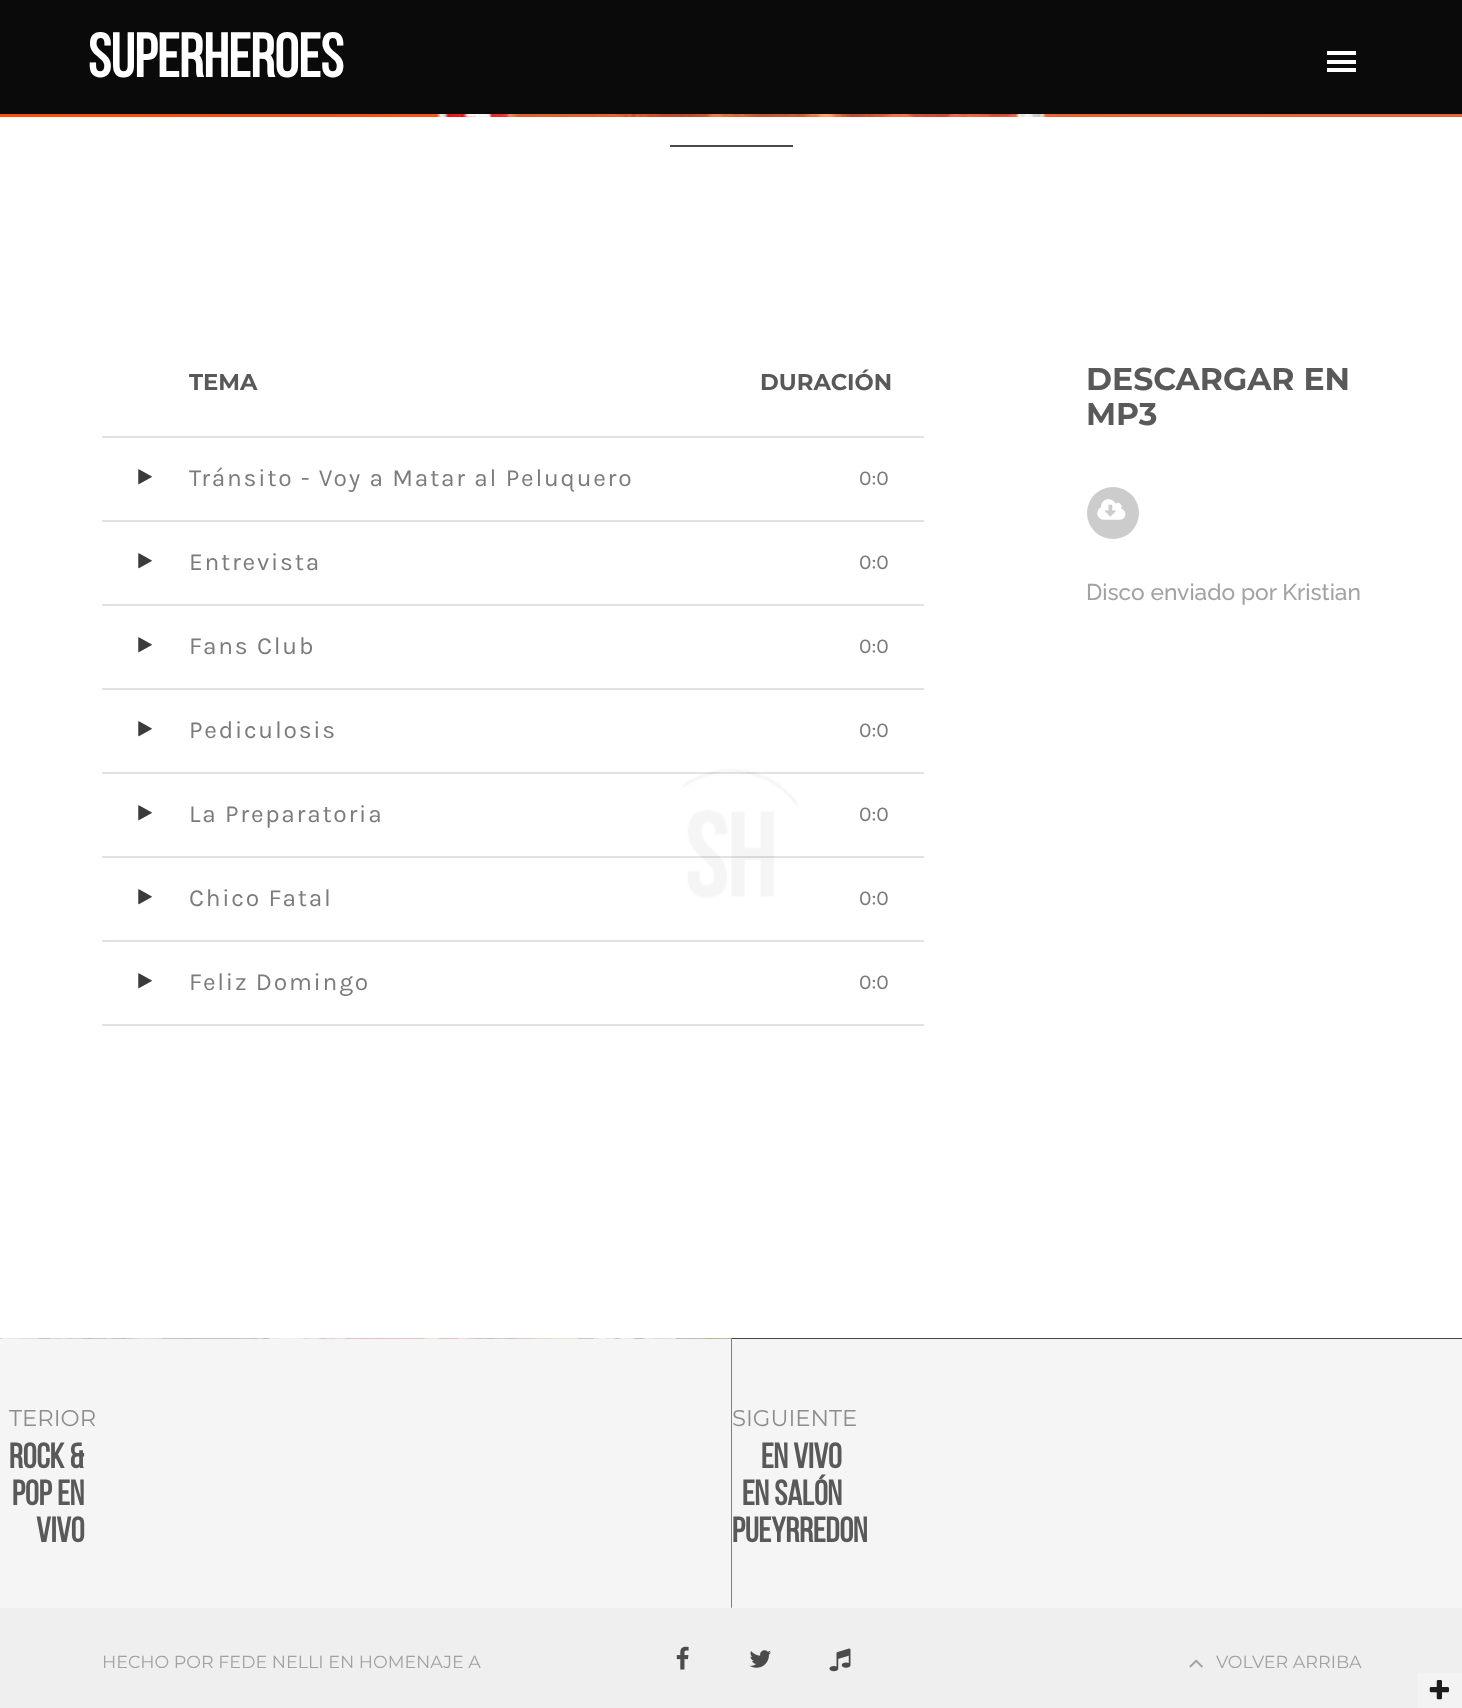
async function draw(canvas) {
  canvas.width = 1462;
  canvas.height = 1708;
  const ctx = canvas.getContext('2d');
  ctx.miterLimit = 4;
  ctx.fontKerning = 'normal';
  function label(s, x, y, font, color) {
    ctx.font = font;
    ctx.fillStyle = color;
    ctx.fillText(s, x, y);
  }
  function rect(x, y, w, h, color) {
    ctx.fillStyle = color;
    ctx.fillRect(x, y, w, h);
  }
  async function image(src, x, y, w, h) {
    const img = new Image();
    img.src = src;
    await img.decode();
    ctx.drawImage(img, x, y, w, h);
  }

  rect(0, 0, 1462, 1708, '#fff');
  rect(0, 0, 1462, 114, '#0a0a0a');
  label('SUPERHEROES', 88, 77, 'bold 61.25px Bebas Neue', '#fff');
  rect(1327, 51, 29, 4, '#fff');
  rect(1327, 60, 29, 4, '#fff');
  rect(1327, 68, 29, 4, '#fff');
  await image('assets/img1.png', 0, 114, 1462, 3);
  rect(670, 145, 123, 2, '#4b4b4b');
  label('TEMA', 189, 390, 'bold 22.75px Montserrat', '#595959');
  label('DURACIÓN', 760, 390, 'bold 22.75px Montserrat', '#595959');
  rect(102, 436, 822, 2, '#e7e0de');
  rect(102, 520, 822, 2, '#e7e0de');
  await image('assets/img2.png', 138, 469, 14, 16);
  ctx.letterSpacing = '1.75px';
  label('Tránsito - Voy a Matar al Peluquero', 189, 486, '24.5px Karla', '#7b7b7b');
  ctx.letterSpacing = '0px';
  label('0:0', 859, 485, '21px Karla', '#7b7b7b');
  rect(102, 604, 822, 2, '#e7e0de');
  await image('assets/img2.png', 138, 553, 14, 16);
  ctx.letterSpacing = '1.75px';
  label('Entrevista', 189, 570, '24.5px Karla', '#7b7b7b');
  ctx.letterSpacing = '0px';
  label('0:0', 859, 569, '21px Karla', '#7b7b7b');
  rect(102, 688, 822, 2, '#e7e0de');
  await image('assets/img2.png', 138, 637, 14, 16);
  ctx.letterSpacing = '1.75px';
  label('Fans Club', 189, 654, '24.5px Karla', '#7b7b7b');
  ctx.letterSpacing = '0px';
  label('0:0', 859, 653, '21px Karla', '#7b7b7b');
  rect(102, 772, 822, 2, '#e7e0de');
  await image('assets/img2.png', 138, 721, 14, 16);
  ctx.letterSpacing = '1.75px';
  label('Pediculosis', 189, 738, '24.5px Karla', '#7b7b7b');
  ctx.letterSpacing = '0px';
  label('0:0', 859, 737, '21px Karla', '#7b7b7b');
  rect(102, 856, 822, 2, '#e7e0de');
  await image('assets/img2.png', 138, 805, 14, 16);
  ctx.letterSpacing = '1.75px';
  label('La Preparatoria', 189, 822, '24.5px Karla', '#7b7b7b');
  ctx.letterSpacing = '0px';
  label('0:0', 859, 821, '21px Karla', '#7b7b7b');
  rect(102, 940, 822, 2, '#e7e0de');
  await image('assets/img2.png', 138, 889, 14, 16);
  ctx.letterSpacing = '1.75px';
  label('Chico Fatal', 189, 906, '24.5px Karla', '#7b7b7b');
  ctx.letterSpacing = '0px';
  label('0:0', 859, 905, '21px Karla', '#7b7b7b');
  rect(102, 1024, 822, 2, '#e7e0de');
  await image('assets/img2.png', 138, 973, 14, 16);
  ctx.letterSpacing = '1.75px';
  label('Feliz Domingo', 189, 990, '24.5px Karla', '#7b7b7b');
  ctx.letterSpacing = '0px';
  label('0:0', 859, 989, '21px Karla', '#7b7b7b');
  label('DESCARGAR EN', 1086, 390, 'bold 31.5px Montserrat', '#595959');
  label('MP3', 1086, 425, 'bold 31.5px Montserrat', '#595959');
  ctx.fillStyle = '#ccc';
  ctx.beginPath();
  ctx.arc(1113, 513, 26, 0, 2 * Math.PI);
  ctx.fill();
  await image('assets/img3.png', 1097, 499, 29, 21);
  label('Disco enviado por Kristian', 1086, 600, '500 22.75px Raleway', '#a2a2a2');
  await image('assets/img4.png', 682, 769, 116, 129);
  await image('assets/img5.png', 0, 1338, 732, 1);
  rect(0, 1339, 732, 269, '#f5f5f5');
  label('TERIOR', 9, 1426, '22.75px Montserrat', '#8d8d8d');
  label('ROCK &', 9, 1468, 'bold 35px Bebas Neue', '#595959');
  label('POP EN', 12, 1505, 'bold 35px Bebas Neue', '#595959');
  label('VIVO', 36, 1542, 'bold 35px Bebas Neue', '#595959');
  await image('assets/img6.png', 731, 1338, 731, 270);
  rect(732, 1339, 730, 269, '#f5f5f5');
  label('SIGUIENTE', 732, 1426, '22.75px Montserrat', '#8d8d8d');
  label('EN VIVO', 761, 1468, 'bold 35px Bebas Neue', '#595959');
  label('EN SALÓN', 742, 1505, 'bold 35px Bebas Neue', '#595959');
  label('PUEYRREDON', 732, 1542, 'bold 35px Bebas Neue', '#595959');
  rect(0, 1608, 1462, 100, '#efefef');
  label('HECHO POR FEDE NELLI EN HOMENAJE A', 102, 1668, '17.5px Montserrat', '#a2a2a2');
  await image('assets/img7.png', 676, 1646, 13, 24);
  await image('assets/img8.png', 749, 1650, 22, 18);
  await image('assets/img9.png', 829, 1648, 22, 24);
  await image('assets/img10.png', 1189, 1659, 14, 9);
  label('VOLVER ARRIBA', 1216, 1668, '17.5px Montserrat', '#a2a2a2');
  rect(1418, 1673, 44, 35, '#f3f3f3');
  await image('assets/img11.png', 1429, 1680, 20, 20);
}

draw(document.querySelector('canvas'));
